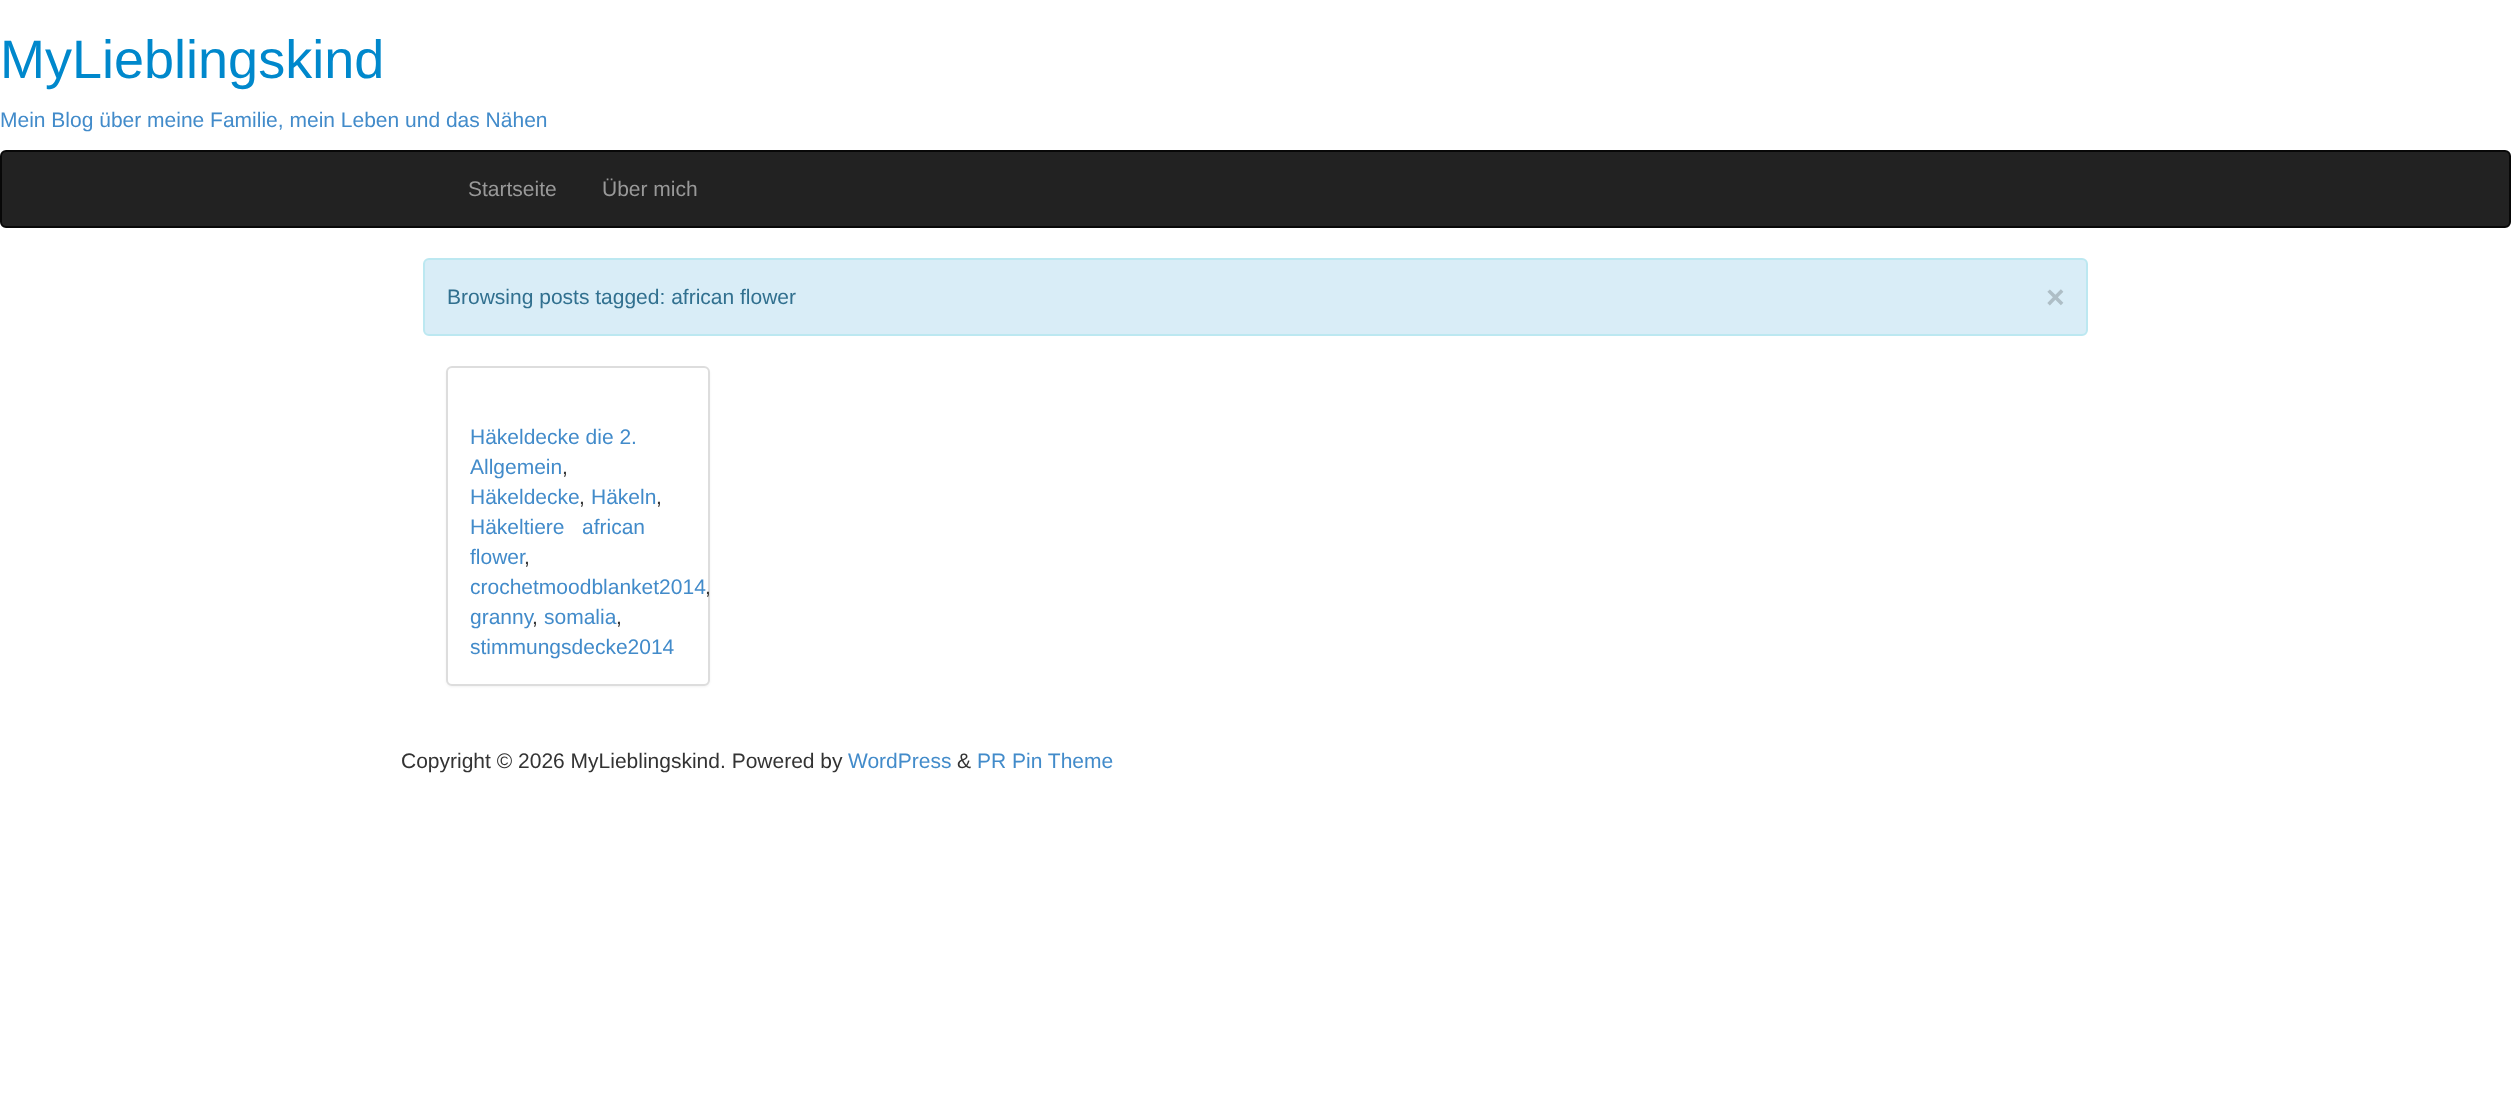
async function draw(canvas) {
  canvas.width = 2511;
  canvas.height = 1112;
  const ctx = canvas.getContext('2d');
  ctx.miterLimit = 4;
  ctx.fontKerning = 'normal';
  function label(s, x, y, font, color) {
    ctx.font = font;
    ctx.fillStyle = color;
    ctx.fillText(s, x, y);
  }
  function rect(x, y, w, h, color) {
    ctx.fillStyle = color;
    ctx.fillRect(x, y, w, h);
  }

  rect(0, 0, 2511, 1112, '#fff');
  label('MyLieblingskind', 0, 78, '54px Liberation Sans', '#08c');
  label('Mein Blog über meine Familie, mein Leben und das Nähen', 0, 127, '21px Liberation Sans', '#428bca');
  ctx.fillStyle = '#222';
  ctx.beginPath();
  ctx.roundRect(1, 151, 2509, 76, 5);
  ctx.fill();
  ctx.strokeStyle = '#080808';
  ctx.lineWidth = 2;
  ctx.stroke();
  label('Startseite', 468, 196, '21px Liberation Sans', '#999');
  label('Über mich', 602, 196, '21px Liberation Sans', '#999');
  ctx.fillStyle = '#d9edf7';
  ctx.beginPath();
  ctx.roundRect(424, 259, 1663, 76, 5);
  ctx.fill();
  ctx.strokeStyle = '#bce8f1';
  ctx.stroke();
  label('Browsing posts tagged: african flower', 447, 304, '21px Liberation Sans', '#31708f');
  label('×', 2046, 308, 'bold 32px Liberation Sans', '#aebec6');
  ctx.fillStyle = '#0000000d';
  ctx.filter = 'blur(1px)';
  ctx.beginPath();
  ctx.roundRect(446, 368, 264, 319, 6);
  ctx.fill();
  ctx.filter = 'none';
  ctx.fillStyle = '#fff';
  ctx.beginPath();
  ctx.roundRect(447, 367, 262, 318, 5);
  ctx.fill();
  ctx.strokeStyle = '#ddd';
  ctx.stroke();
  label('Häkeldecke die 2.', 470, 444, '21px Liberation Sans', '#428bca');
  label('Allgemein', 470, 474, '21px Liberation Sans', '#428bca');
  label(',', 562, 474, '21px Liberation Sans', '#333');
  label('Häkeldecke', 470, 504, '21px Liberation Sans', '#428bca');
  label(',', 579, 504, '21px Liberation Sans', '#333');
  label('Häkeln', 591, 504, '21px Liberation Sans', '#428bca');
  label(',', 656, 504, '21px Liberation Sans', '#333');
  label('Häkeltiere', 470, 534, '21px Liberation Sans', '#428bca');
  label('african', 582, 534, '21px Liberation Sans', '#428bca');
  label('flower', 470, 564, '21px Liberation Sans', '#428bca');
  label(',', 524, 564, '21px Liberation Sans', '#333');
  label('crochetmoodblanket2014', 470, 594, '21px Liberation Sans', '#428bca');
  label(',', 705, 594, '21px Liberation Sans', '#333');
  label('granny', 470, 624, '21px Liberation Sans', '#428bca');
  label(',', 532, 624, '21px Liberation Sans', '#333');
  label('somalia', 544, 624, '21px Liberation Sans', '#428bca');
  label(',', 616, 624, '21px Liberation Sans', '#333');
  label('stimmungsdecke2014', 470, 654, '21px Liberation Sans', '#428bca');
  label('Copyright © 2026 MyLieblingskind. Powered by', 401, 768, '21px Liberation Sans', '#333');
  label('WordPress', 848, 768, '21px Liberation Sans', '#428bca');
  label('&', 957, 768, '21px Liberation Sans', '#333');
  label('PR Pin Theme', 977, 768, '21px Liberation Sans', '#428bca');
}

draw(document.querySelector('canvas'));
